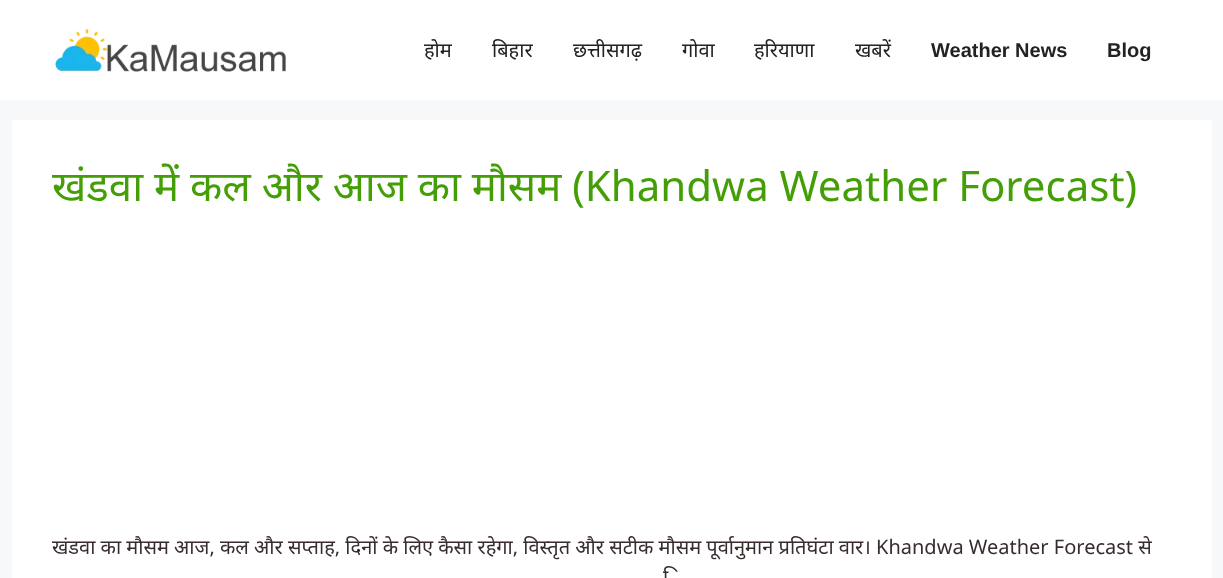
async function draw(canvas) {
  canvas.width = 1223;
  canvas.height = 578;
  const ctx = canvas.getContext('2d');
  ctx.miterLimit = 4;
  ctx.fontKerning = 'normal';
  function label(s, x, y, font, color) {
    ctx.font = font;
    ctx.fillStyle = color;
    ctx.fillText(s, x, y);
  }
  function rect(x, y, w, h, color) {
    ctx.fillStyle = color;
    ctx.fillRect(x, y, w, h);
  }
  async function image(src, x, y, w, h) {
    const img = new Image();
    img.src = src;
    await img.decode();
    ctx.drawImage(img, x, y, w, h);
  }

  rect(0, 0, 1223, 578, '#f7f8f9');
  rect(0, 0, 1223, 100, '#fff');
  await image('assets/img1.png', 55, 29, 231, 43);
  label('होम', 424, 57, '20px Noto Sans', '#222');
  label('बिहार', 492, 57, '20px Noto Sans', '#222');
  label('छत्तीसगढ़', 573, 57, '20px Noto Sans', '#222');
  label('गोवा', 682, 57, '20px Noto Sans', '#222');
  label('हरियाणा', 754, 57, '20px Noto Sans', '#222');
  label('खबरें', 855, 57, '20px Noto Sans', '#222');
  label('Weather News', 931, 57, 'bold 20px Liberation Sans', '#222');
  label('Blog', 1107, 57, 'bold 20px Liberation Sans', '#222');
  rect(12, 120, 1200, 458, '#fff');
  label('खंडवा में कल और आज का मौसम (Khandwa Weather Forecast)', 52, 201, '42px Noto Sans', '#449f07');
  label('खंडवा का मौसम आज, कल और सप्ताह, दिनों के लिए कैसा रहेगा, विस्तृत और सटीक मौसम पूर्वानुमान प्रतिघंटा वार। Khandwa Weather Forecast से', 52, 554, '20px Noto Sans', '#382d2d');
  label('ि', 663, 584, '20px Noto Sans', '#382d2d');
}

draw(document.querySelector('canvas'));
